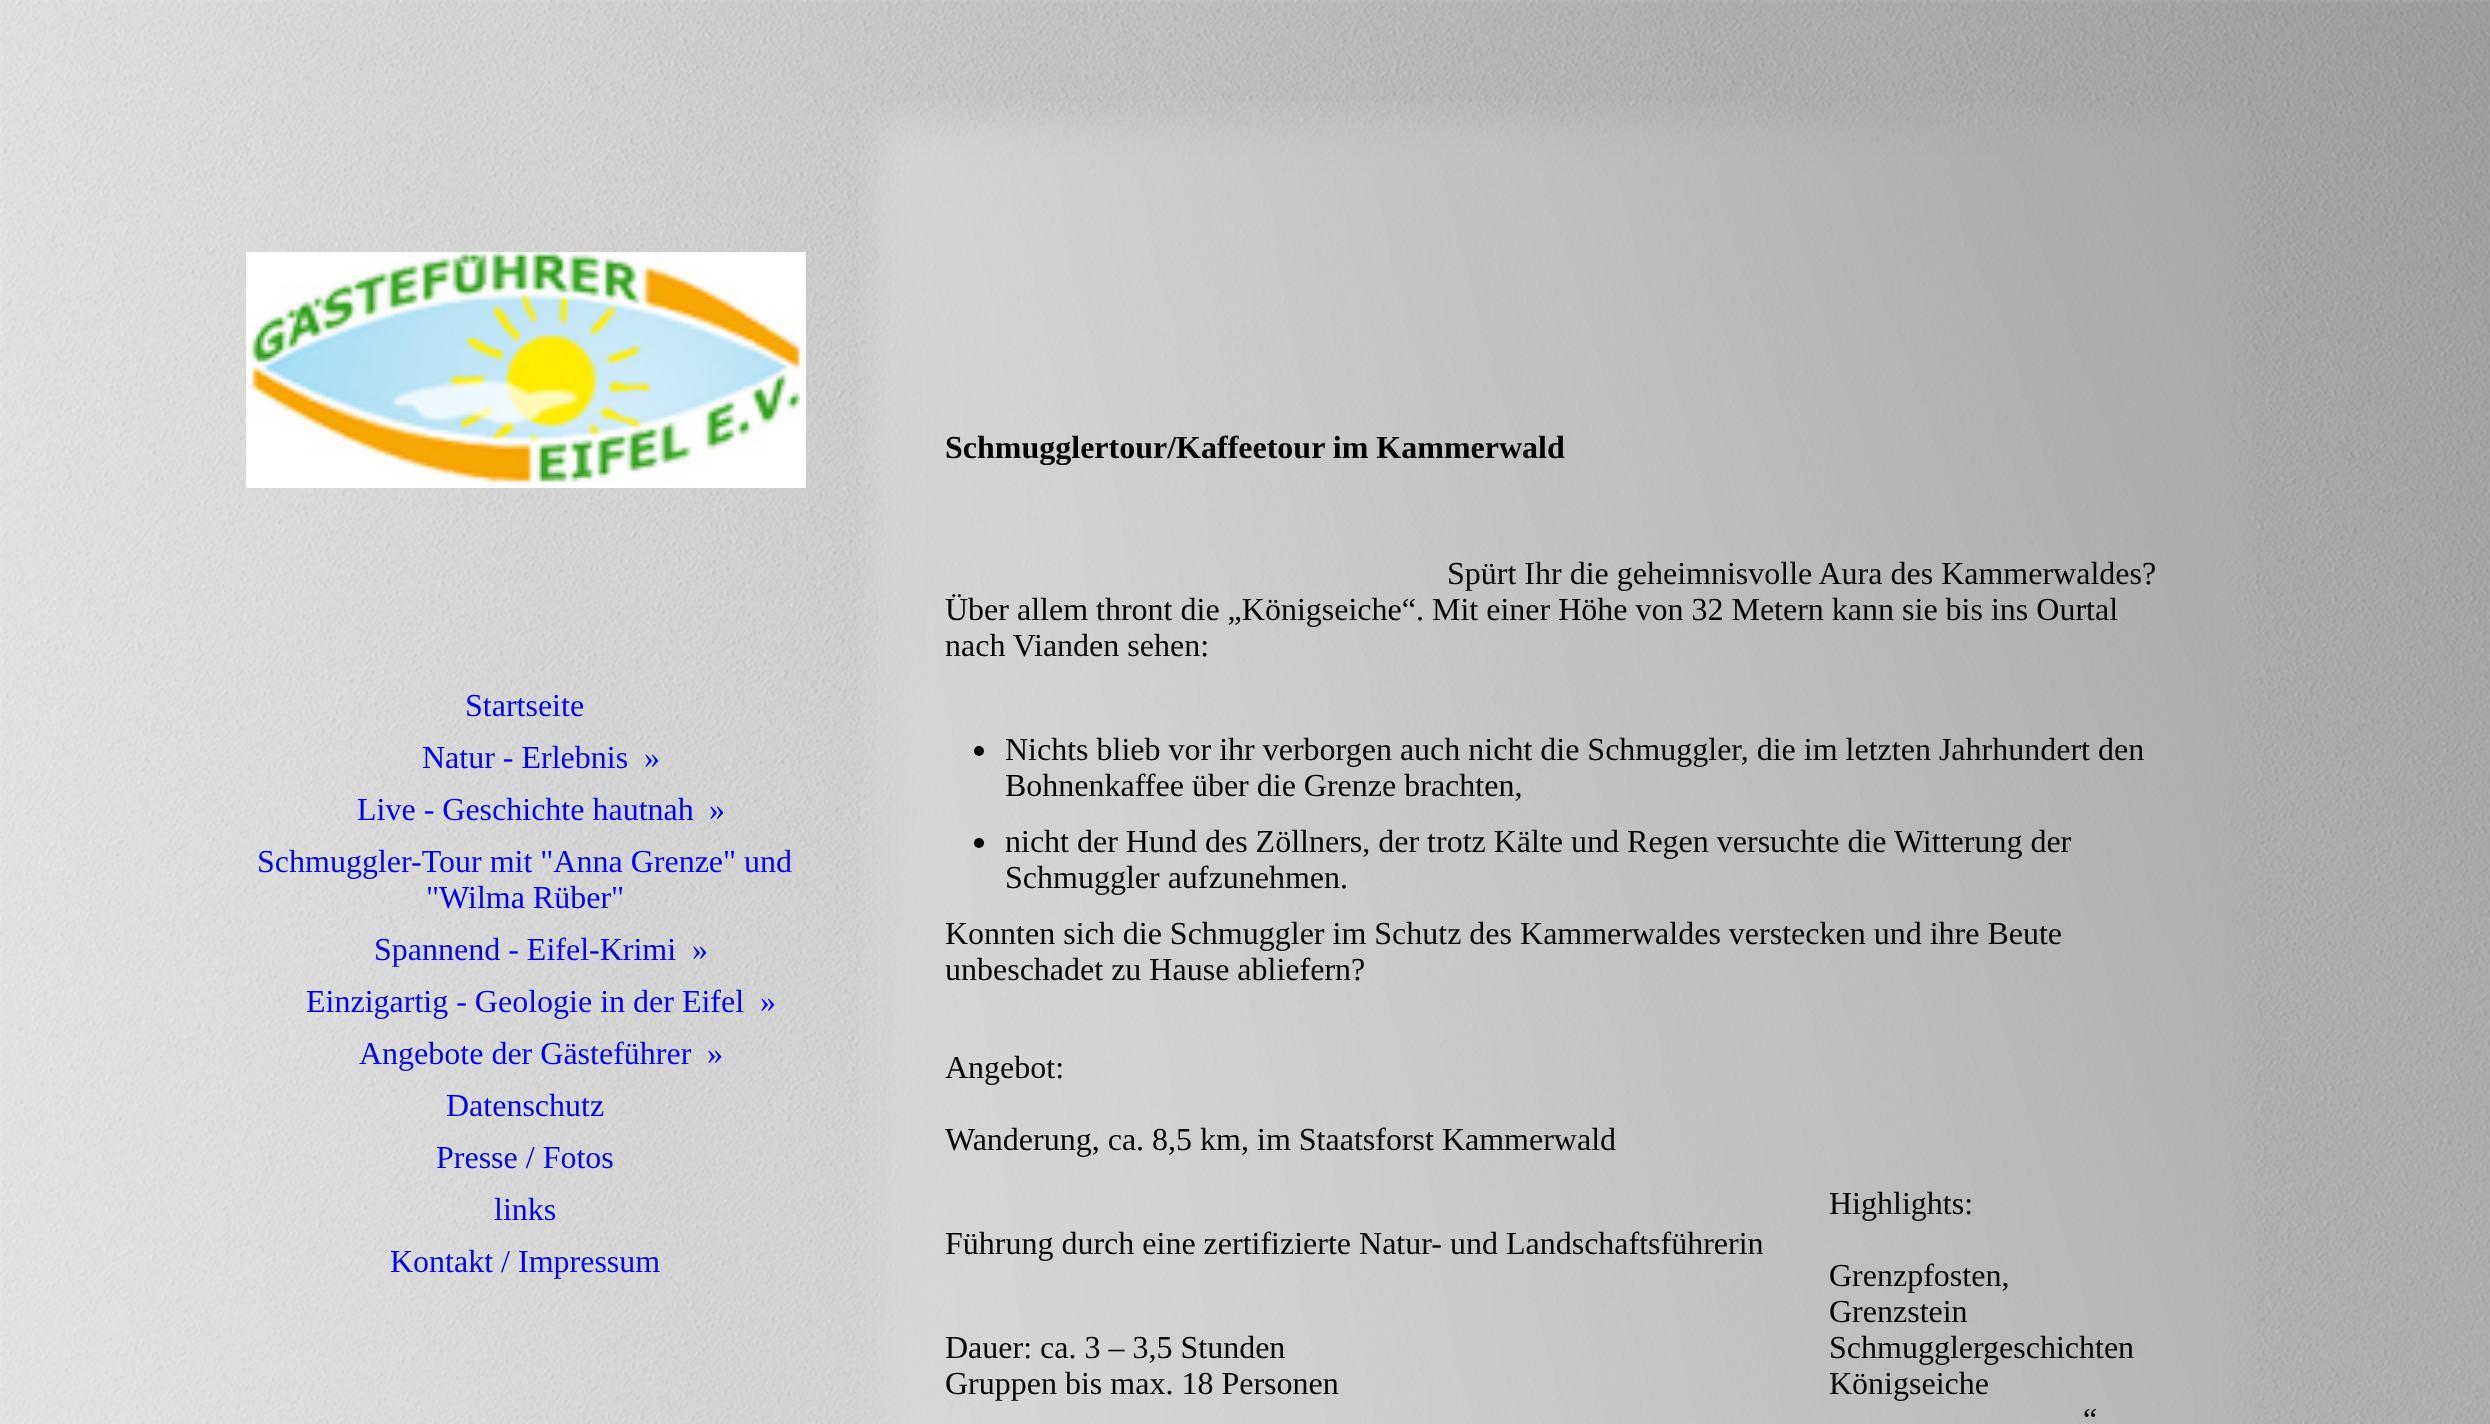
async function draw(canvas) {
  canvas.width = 2490;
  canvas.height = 1424;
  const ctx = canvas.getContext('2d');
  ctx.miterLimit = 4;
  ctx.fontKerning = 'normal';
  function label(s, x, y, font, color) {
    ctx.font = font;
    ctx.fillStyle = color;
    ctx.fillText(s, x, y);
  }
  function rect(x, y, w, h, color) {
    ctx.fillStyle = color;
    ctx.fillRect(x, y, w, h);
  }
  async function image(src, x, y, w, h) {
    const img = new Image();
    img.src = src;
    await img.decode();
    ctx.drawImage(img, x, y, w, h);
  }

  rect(0, 0, 2490, 1424, '#fff');
  await image('assets/img1.png', 0, 0, 2490, 1424);
  await image('assets/img2.png', 246, 252, 560, 236);
  label('Startseite', 465, 716, '32px Liberation Serif', '#00e');
  label('Natur - Erlebnis', 422, 768, '32px Liberation Serif', '#00e');
  label('»', 644, 768, '32px Liberation Serif', '#00e');
  label('Live - Geschichte hautnah', 357, 820, '32px Liberation Serif', '#00e');
  label('»', 709, 820, '32px Liberation Serif', '#00e');
  label('Schmuggler-Tour mit "Anna Grenze" und', 257, 872, '32px Liberation Serif', '#00e');
  label('"Wilma Rüber"', 426, 908, '32px Liberation Serif', '#00e');
  label('Spannend - Eifel-Krimi', 374, 960, '32px Liberation Serif', '#00e');
  label('»', 692, 960, '32px Liberation Serif', '#00e');
  label('Einzigartig - Geologie in der Eifel', 306, 1012, '32px Liberation Serif', '#00e');
  label('»', 760, 1012, '32px Liberation Serif', '#00e');
  label('Angebote der Gästeführer', 359, 1064, '32px Liberation Serif', '#00e');
  label('»', 707, 1064, '32px Liberation Serif', '#00e');
  label('Datenschutz', 446, 1116, '32px Liberation Serif', '#00e');
  label('Presse / Fotos', 436, 1168, '32px Liberation Serif', '#00e');
  label('links', 494, 1220, '32px Liberation Serif', '#00e');
  label('Kontakt / Impressum', 390, 1272, '32px Liberation Serif', '#00e');
  await image('assets/img3.png', 859, 101, 1398, 1323);
  label('Schmugglertour/Kaffeetour im Kammerwald', 945, 458, 'bold 32px Liberation Serif', '#000');
  label('Spürt Ihr die geheimnisvolle Aura des Kammerwaldes?', 1447, 584, '32px Liberation Serif', '#000');
  label('Über allem thront die „Königseiche“. Mit einer Höhe von 32 Metern kann sie bis ins Ourtal', 945, 620, '32px Liberation Serif', '#000');
  label('nach Vianden sehen:', 945, 656, '32px Liberation Serif', '#000');
  ctx.beginPath();
  ctx.arc(979, 751, 5, 0, 2 * Math.PI);
  ctx.fill();
  label('Nichts blieb vor ihr verborgen auch nicht die Schmuggler, die im letzten Jahrhundert den', 1005, 760, '32px Liberation Serif', '#000');
  label('Bohnenkaffee über die Grenze brachten,', 1005, 796, '32px Liberation Serif', '#000');
  ctx.beginPath();
  ctx.arc(979, 843, 5, 0, 2 * Math.PI);
  ctx.fill();
  label('nicht der Hund des Zöllners, der trotz Kälte und Regen versuchte die Witterung der', 1005, 852, '32px Liberation Serif', '#000');
  label('Schmuggler aufzunehmen.', 1005, 888, '32px Liberation Serif', '#000');
  label('Konnten sich die Schmuggler im Schutz des Kammerwaldes verstecken und ihre Beute', 945, 944, '32px Liberation Serif', '#000');
  label('unbeschadet zu Hause abliefern?', 945, 980, '32px Liberation Serif', '#000');
  label('Angebot:', 945, 1078, '32px Liberation Serif', '#000');
  label('Wanderung, ca. 8,5 km, im Staatsforst Kammerwald', 945, 1150, '32px Liberation Serif', '#000');
  label('Führung durch eine zertifizierte Natur- und Landschaftsführerin', 945, 1254, '32px Liberation Serif', '#000');
  label('Dauer: ca. 3 – 3,5 Stunden', 945, 1358, '32px Liberation Serif', '#000');
  label('Gruppen bis max. 18 Personen', 945, 1394, '32px Liberation Serif', '#000');
  label('Highlights:', 1829, 1214, '32px Liberation Serif', '#000');
  label('Grenzpfosten,', 1829, 1286, '32px Liberation Serif', '#000');
  label('Grenzstein', 1829, 1322, '32px Liberation Serif', '#000');
  label('Schmugglergeschichten', 1829, 1358, '32px Liberation Serif', '#000');
  label('Königseiche', 1829, 1394, '32px Liberation Serif', '#000');
  label('“', 2083, 1430, '32px Liberation Serif', '#000');
}

draw(document.querySelector('canvas'));
